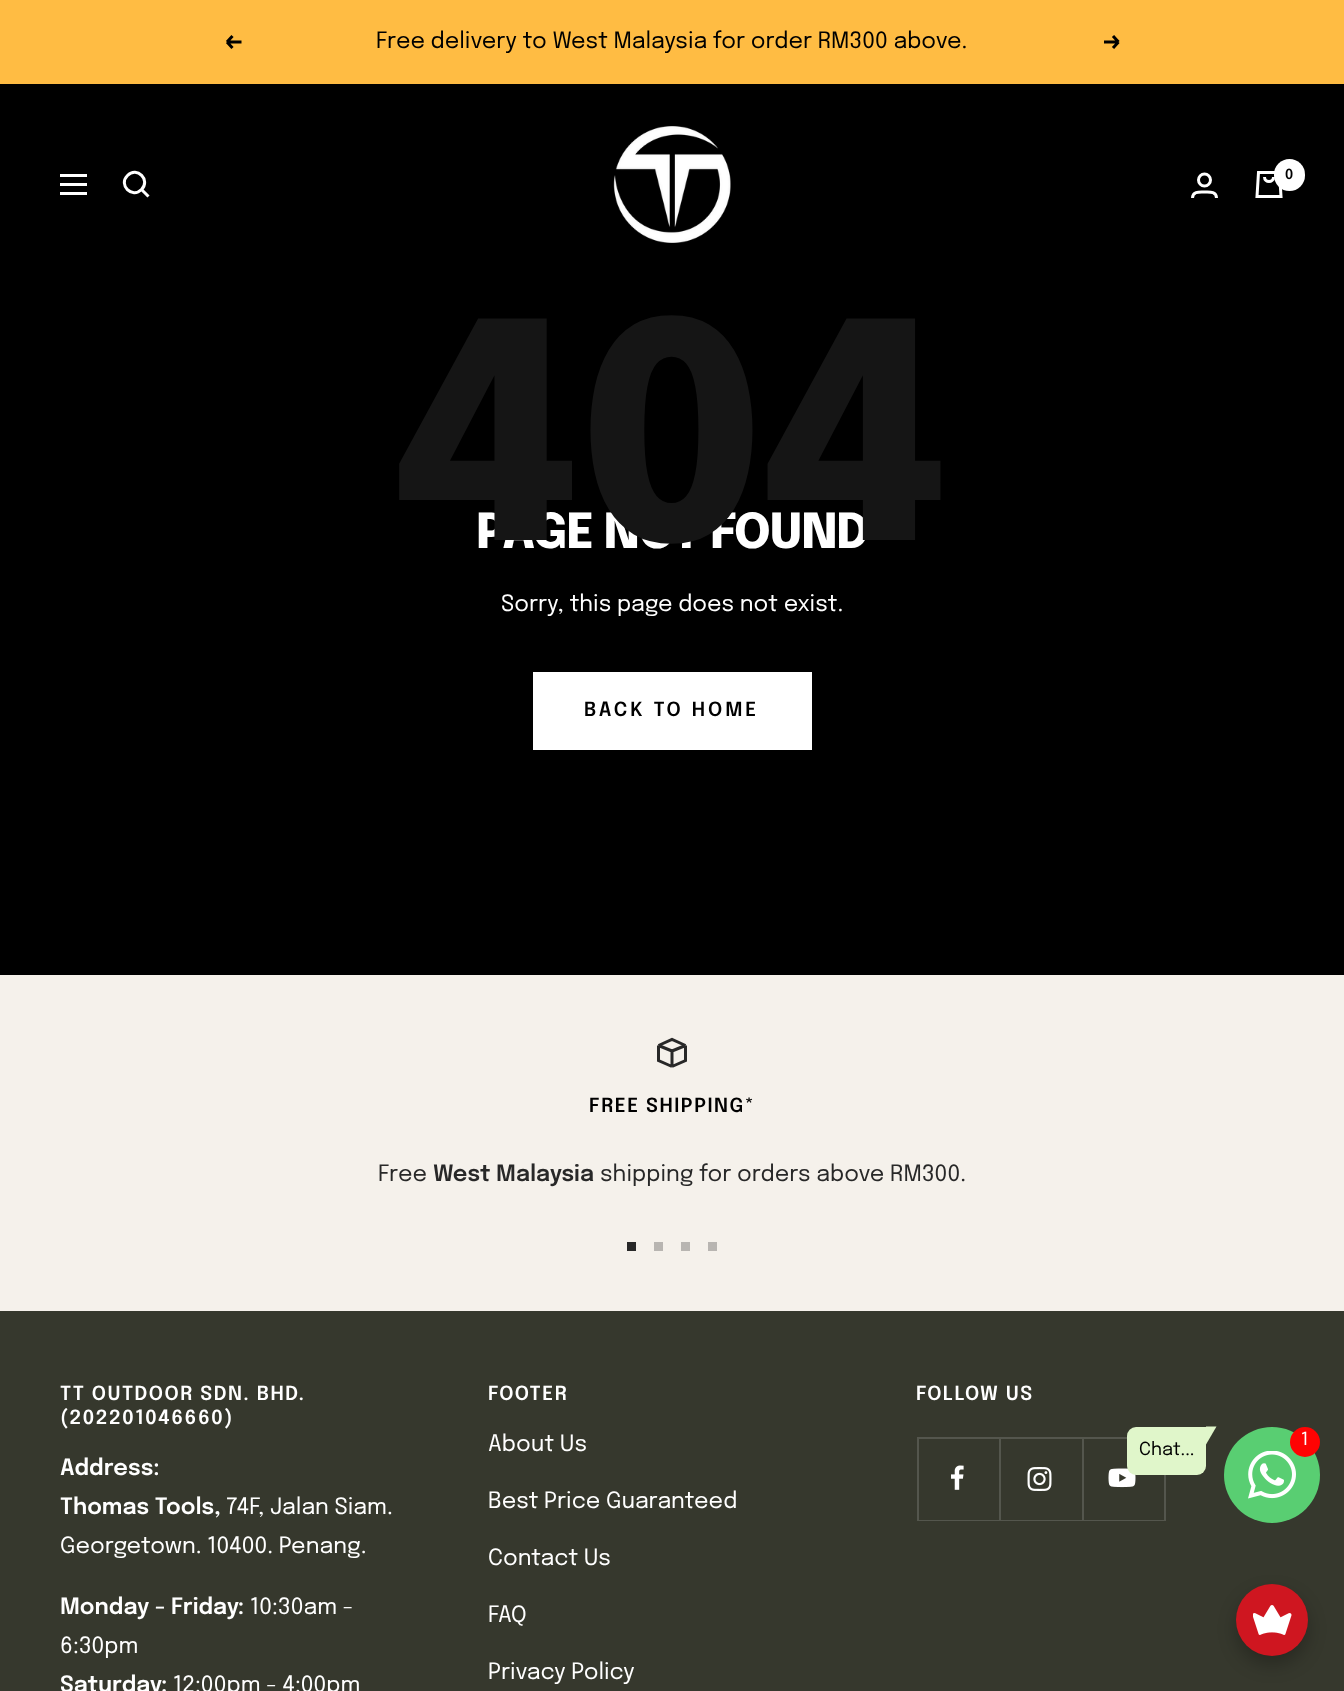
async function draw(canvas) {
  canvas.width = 1344;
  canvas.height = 1691;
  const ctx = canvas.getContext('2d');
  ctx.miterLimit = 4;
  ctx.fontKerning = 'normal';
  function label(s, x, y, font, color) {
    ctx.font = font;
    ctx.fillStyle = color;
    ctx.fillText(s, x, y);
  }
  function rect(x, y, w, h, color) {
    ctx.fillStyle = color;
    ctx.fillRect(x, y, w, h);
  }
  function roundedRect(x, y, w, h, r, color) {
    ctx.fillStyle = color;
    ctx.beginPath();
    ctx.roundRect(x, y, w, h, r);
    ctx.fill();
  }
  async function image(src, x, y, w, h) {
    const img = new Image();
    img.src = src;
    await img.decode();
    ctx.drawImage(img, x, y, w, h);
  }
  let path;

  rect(0, 0, 1344, 1691, '#f5f1eb');
  rect(0, 0, 1344, 84, '#ffbc43');
  path = new Path2D('M241.5 42H227M227 42L232.5 48M227 42L232.5 36');
  ctx.strokeStyle = '#000';
  ctx.lineWidth = 3;
  ctx.stroke(path);
  label('Free delivery to West Malaysia for order RM300 above.', 376, 48, '22.5px Epilogue', '#000');
  path = new Path2D('M1104 42H1118.5M1118.5 42L1113 48M1118.5 42L1113 36');
  ctx.stroke(path);
  rect(0, 84, 1344, 891, '#000');
  path = new Path2D('M60 175.5H87M60 193.5H87ZM60 184.5H87Z');
  ctx.strokeStyle = '#fff';
  ctx.stroke(path);
  path = new Path2D('M141.5 189.5C151 180 137 166 127.5 175.5C118 185 132 199 141.5 189.5ZM141.5 189.5L148.5 196.5');
  ctx.stroke(path);
  await image('assets/img1.png', 613, 126, 118, 117);
  ctx.beginPath();
  ctx.arc(1204.5, 180, 6, 0, 2 * Math.PI);
  ctx.stroke();
  path = new Path2D('M1192.5 198C1192.5 191 1200 192 1204.5 192C1209 192 1216.5 191 1216.5 198');
  ctx.stroke(path);
  path = new Path2D('M1258.5 172.5H1279.5L1281 196.5H1257ZM1264.5 177C1264.5 183 1273.5 183 1273.5 177');
  ctx.stroke(path);
  roundedRect(1274, 159, 31, 32, 15.5, '#fff');
  label('0', 1285, 179, '600 14px Epilogue', '#000');
  ctx.letterSpacing = '-1.25px';
  label('PAGE NOT FOUND', 476, 548, '800 48px Epilogue', '#fff');
  ctx.letterSpacing = '0px';
  label('404', 395, 540, '800 300px Epilogue', '#151515');
  label('Sorry, this page does not exist.', 501, 611, '22.5px Epilogue', '#fff');
  rect(533, 672, 279, 78, '#fff');
  ctx.letterSpacing = '3px';
  label('BACK TO HOME', 584, 716, '600 19.5px Epilogue', '#000');
  path = new Path2D('M672 1066.5L685.5 1060.5V1045.5M672 1066.5L658.5 1060.5V1045.5M672 1066.5V1051M685.5 1045.5L672 1039.5L658.5 1045.5M685.5 1045.5L672 1051M658.5 1045.5L672 1051');
  ctx.strokeStyle = '#282828';
  ctx.stroke(path);
  ctx.letterSpacing = '1.5px';
  label('FREE SHIPPING*', 589, 1112, '600 19.5px Epilogue', '#000');
  ctx.letterSpacing = '0px';
  label('Free', 378, 1181, '22.5px Epilogue', '#282828');
  label('West Malaysia', 433, 1181, '600 22.5px Epilogue', '#282828');
  label('shipping for orders above RM300.', 600, 1181, '22.5px Epilogue', '#282828');
  rect(627, 1242, 9, 9, '#282828');
  rect(654, 1242, 9, 9, '#b8b5b1');
  rect(681, 1242, 9, 9, '#b8b5b1');
  rect(708, 1242, 9, 9, '#b8b5b1');
  rect(0, 1311, 1344, 380, '#36382d');
  ctx.letterSpacing = '1.5px';
  label('TT OUTDOOR SDN. BHD.', 60, 1400, '600 19.5px Epilogue', '#fff');
  label('(202201046660)', 60, 1424, '600 19.5px Epilogue', '#fff');
  ctx.letterSpacing = '0px';
  label('Address:', 60, 1475, '600 22.5px Epilogue', '#fff');
  label('Thomas Tools,', 60, 1514, '600 22.5px Epilogue', '#fff');
  label('74F, Jalan Siam.', 226, 1514, '22.5px Epilogue', '#fff');
  label('Georgetown. 10400. Penang.', 60, 1553, '22.5px Epilogue', '#fff');
  label('Monday - Friday:', 60, 1614, '600 22.5px Epilogue', '#fff');
  label('10:30am -', 250, 1614, '22.5px Epilogue', '#fff');
  label('6:30pm', 60, 1653, '22.5px Epilogue', '#fff');
  label('Saturday:', 60, 1692, '600 22.5px Epilogue', '#fff');
  label('12:00pm - 4:00pm', 173, 1692, '22.5px Epilogue', '#fff');
  ctx.letterSpacing = '1.5px';
  label('FOOTER', 488, 1400, '600 19.5px Epilogue', '#fff');
  ctx.letterSpacing = '0px';
  label('About Us', 488, 1451, '22.5px Epilogue', '#fff');
  label('Best Price Guaranteed', 488, 1508, '22.5px Epilogue', '#fff');
  label('Contact Us', 488, 1565, '22.5px Epilogue', '#fff');
  label('FAQ', 488, 1622, '22.5px Epilogue', '#fff');
  label('Privacy Policy', 488, 1679, '22.5px Epilogue', '#fff');
  ctx.letterSpacing = '1.5px';
  label('FOLLOW US', 916, 1400, '600 19.5px Epilogue', '#fff');
  ctx.fillStyle = '#54564d';
  path = new Path2D('M918 1520V1521H1001V1439H999V1520Z');
  ctx.fill(path);
  rect(917, 1520, 1, 1, '#54564d');
  path = new Path2D('M918 1520H1001V1437H999V1520Z');
  ctx.fill(path);
  rect(917, 1437, 210, 2, '#54564d');
  rect(917, 1437, 2, 83, '#54564d');
  await image('assets/img2.png', 951, 1465, 13, 25);
  path = new Path2D('M1001 1520V1521H1083V1439H1082V1520Z');
  ctx.fill(path);
  await image('assets/img3.png', 1027, 1467, 25, 24);
  path = new Path2D('M1083 1520V1521H1166V1439H1164V1520Z');
  ctx.fill(path);
  path = new Path2D('M1083 1520H1166V1437H1164V1520Z');
  ctx.fill(path);
  rect(1083, 1437, 1, 83, '#54564d');
  await image('assets/img4.png', 1108, 1468, 28, 20);
  ctx.fillStyle = '#59ce72';
  ctx.beginPath();
  ctx.arc(1272, 1475, 48, 0, 2 * Math.PI);
  ctx.fill();
  await image('assets/img5.png', 1248, 1451, 48, 48);
  ctx.fillStyle = '#ff0303';
  ctx.beginPath();
  ctx.arc(1305, 1442, 15, 0, 2 * Math.PI);
  ctx.fill();
  ctx.letterSpacing = '0px';
  label('1', 1301, 1445, '18px Epilogue', '#fff');
  ctx.fillStyle = '#e0f6ca';
  ctx.beginPath();
  ctx.roundRect(1127, 1427, 79, 48, [9, 0, 9, 9]);
  ctx.fill();
  path = new Path2D('M1206 1426.5H1216.5L1206 1444.5Z');
  ctx.fill(path);
  label('Chat...', 1139, 1455, '18px Epilogue', '#000');
  ctx.fillStyle = '#00000040';
  ctx.filter = 'blur(9px)';
  ctx.beginPath();
  ctx.roundRect(1236, 1593, 72, 72, 36);
  ctx.fill();
  ctx.filter = 'none';
  ctx.fillStyle = '#cf1620';
  ctx.beginPath();
  ctx.arc(1272, 1620, 36, 0, 2 * Math.PI);
  ctx.fill();
  await image('assets/img6.png', 1253, 1605, 39, 30);
}

draw(document.querySelector('canvas'));
